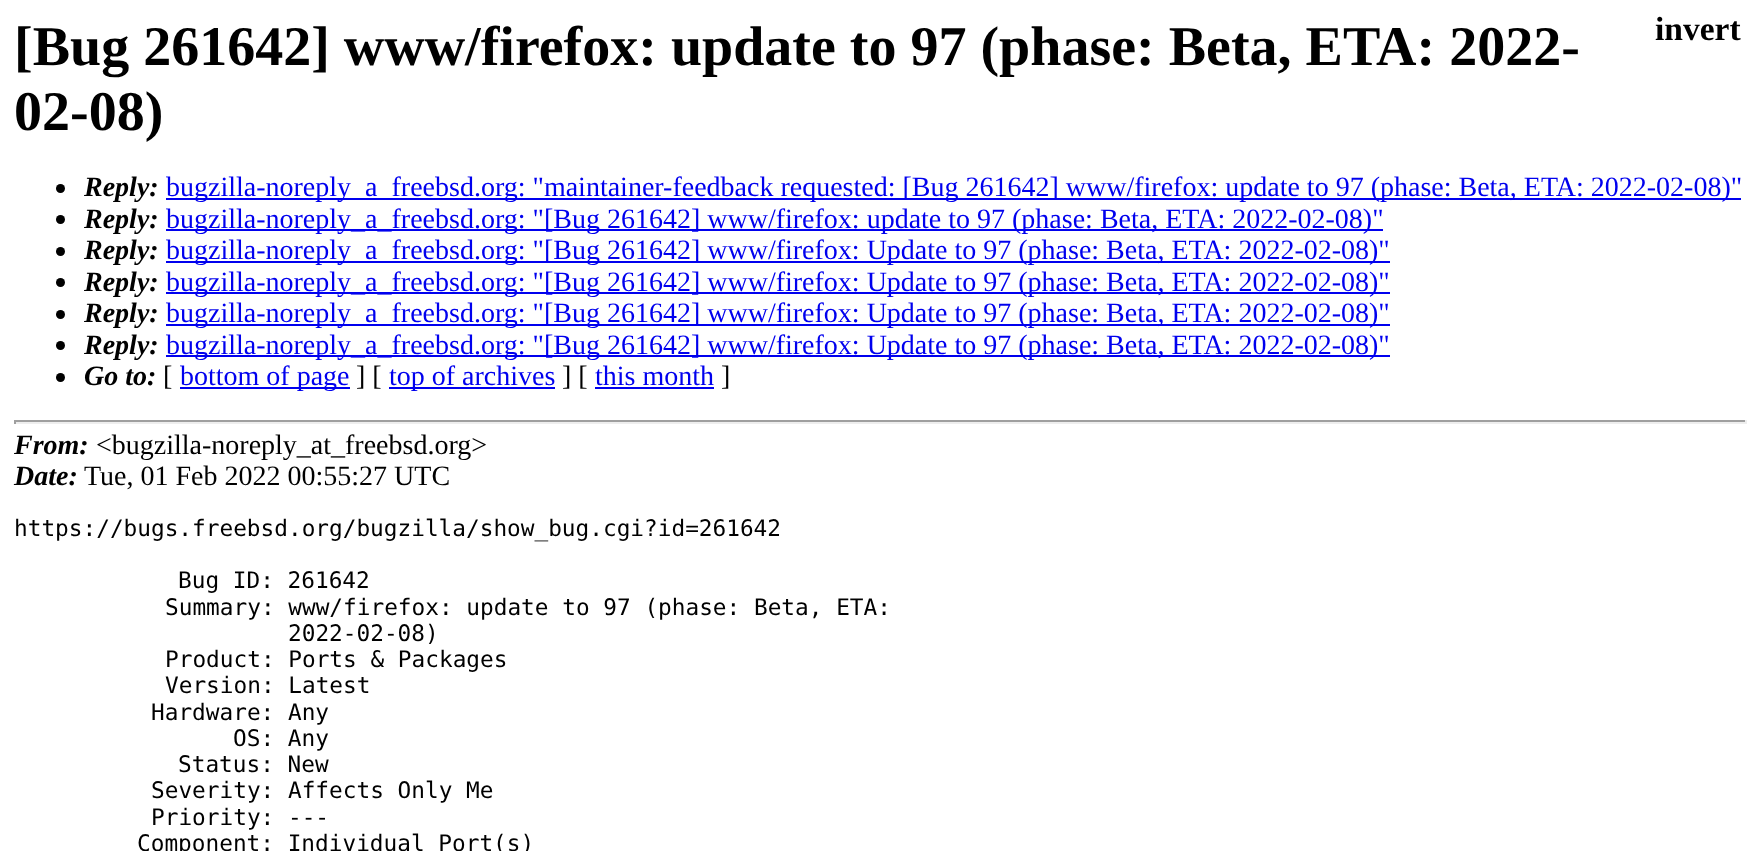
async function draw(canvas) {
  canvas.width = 1760;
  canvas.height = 851;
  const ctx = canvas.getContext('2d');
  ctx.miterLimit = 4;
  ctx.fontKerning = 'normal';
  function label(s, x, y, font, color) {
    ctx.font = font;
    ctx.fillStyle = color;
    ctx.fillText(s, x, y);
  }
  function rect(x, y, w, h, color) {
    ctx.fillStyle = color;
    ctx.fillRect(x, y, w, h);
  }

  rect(0, 0, 1760, 851, '#fff');
  label('invert', 1655, 40, 'bold 33.5px Liberation Serif', '#000');
  label('[Bug 261642] www/firefox: update to 97 (phase: Beta, ETA: 2022-', 14, 65, 'bold 56px Liberation Serif', '#000');
  label('02-08)', 14, 130, 'bold 56px Liberation Serif', '#000');
  ctx.beginPath();
  ctx.arc(60.5, 188.5, 4.5, 0, 2 * Math.PI);
  ctx.fill();
  label('Reply:', 84, 196, 'italic bold 28px Liberation Serif', '#000');
  rect(166, 198, 1575, 2, '#00e');
  label('bugzilla-noreply_a_freebsd.org: "maintainer-feedback requested: [Bug 261642] www/firefox: update to 97 (phase: Beta, ETA: 2022-02-08)"', 166, 196, '28px Liberation Serif', '#00e');
  ctx.fillStyle = '#000';
  ctx.beginPath();
  ctx.arc(60.5, 219.5, 4.5, 0, 2 * Math.PI);
  ctx.fill();
  label('Reply:', 84, 228, 'italic bold 28px Liberation Serif', '#000');
  rect(166, 229, 1217, 2, '#00e');
  label('bugzilla-noreply_a_freebsd.org: "[Bug 261642] www/firefox: update to 97 (phase: Beta, ETA: 2022-02-08)"', 166, 228, '28px Liberation Serif', '#00e');
  ctx.fillStyle = '#000';
  ctx.beginPath();
  ctx.arc(60.5, 251.5, 4.5, 0, 2 * Math.PI);
  ctx.fill();
  label('Reply:', 84, 259, 'italic bold 28px Liberation Serif', '#000');
  rect(166, 261, 1224, 2, '#00e');
  label('bugzilla-noreply_a_freebsd.org: "[Bug 261642] www/firefox: Update to 97 (phase: Beta, ETA: 2022-02-08)"', 166, 259, '28px Liberation Serif', '#00e');
  ctx.fillStyle = '#000';
  ctx.beginPath();
  ctx.arc(60.5, 282.5, 4.5, 0, 2 * Math.PI);
  ctx.fill();
  label('Reply:', 84, 291, 'italic bold 28px Liberation Serif', '#000');
  rect(166, 292, 1224, 2, '#00e');
  label('bugzilla-noreply_a_freebsd.org: "[Bug 261642] www/firefox: Update to 97 (phase: Beta, ETA: 2022-02-08)"', 166, 291, '28px Liberation Serif', '#00e');
  ctx.fillStyle = '#000';
  ctx.beginPath();
  ctx.arc(60.5, 314.5, 4.5, 0, 2 * Math.PI);
  ctx.fill();
  label('Reply:', 84, 322, 'italic bold 28px Liberation Serif', '#000');
  rect(166, 324, 1224, 2, '#00e');
  label('bugzilla-noreply_a_freebsd.org: "[Bug 261642] www/firefox: Update to 97 (phase: Beta, ETA: 2022-02-08)"', 166, 322, '28px Liberation Serif', '#00e');
  ctx.fillStyle = '#000';
  ctx.beginPath();
  ctx.arc(60.5, 345.5, 4.5, 0, 2 * Math.PI);
  ctx.fill();
  label('Reply:', 84, 354, 'italic bold 28px Liberation Serif', '#000');
  rect(166, 355, 1224, 2, '#00e');
  label('bugzilla-noreply_a_freebsd.org: "[Bug 261642] www/firefox: Update to 97 (phase: Beta, ETA: 2022-02-08)"', 166, 354, '28px Liberation Serif', '#00e');
  ctx.fillStyle = '#000';
  ctx.beginPath();
  ctx.arc(60.5, 377.5, 4.5, 0, 2 * Math.PI);
  ctx.fill();
  label('Go to:', 84, 385, 'italic bold 28px Liberation Serif', '#000');
  label('[', 163, 385, '28px Liberation Serif', '#000');
  rect(180, 387, 170, 2, '#00e');
  label('bottom of page', 180, 385, '28px Liberation Serif', '#00e');
  label('] [', 356, 385, '28px Liberation Serif', '#000');
  rect(389, 387, 166, 2, '#00e');
  label('top of archives', 389, 385, '28px Liberation Serif', '#00e');
  label('] [', 562, 385, '28px Liberation Serif', '#000');
  label('this month', 595, 385, '28px Liberation Serif', '#00e');
  rect(595, 387, 119, 2, '#00e');
  label(']', 721, 385, '28px Liberation Serif', '#000');
  rect(14, 420, 1733, 2, '#9f9f9f');
  rect(1745, 420, 2, 4, '#eee');
  rect(14, 422, 1733, 2, '#eee');
  rect(14, 420, 2, 4, '#9f9f9f');
  label('From:', 14, 454, 'italic bold 28px Liberation Serif', '#000');
  label('<bugzilla-noreply_at_freebsd.org>', 96, 454, '28px Liberation Serif', '#000');
  label('Date:', 14, 485, 'italic bold 28px Liberation Serif', '#000');
  label('Tue, 01 Feb 2022 00:55:27 UTC', 84, 485, '28px Liberation Serif', '#000');
  label('https://bugs.freebsd.org/bugzilla/show_bug.cgi?id=261642', 14, 536, '22.75px DejaVu Sans Mono', '#000');
  label('Bug ID: 261642', 178, 588, '22.75px DejaVu Sans Mono', '#000');
  label('Summary: www/firefox: update to 97 (phase: Beta, ETA:', 165, 615, '22.75px DejaVu Sans Mono', '#000');
  label('2022-02-08)', 288, 641, '22.75px DejaVu Sans Mono', '#000');
  label('Product: Ports & Packages', 165, 667, '22.75px DejaVu Sans Mono', '#000');
  label('Version: Latest', 165, 693, '22.75px DejaVu Sans Mono', '#000');
  label('Hardware: Any', 151, 720, '22.75px DejaVu Sans Mono', '#000');
  label('OS: Any', 233, 746, '22.75px DejaVu Sans Mono', '#000');
  label('Status: New', 178, 772, '22.75px DejaVu Sans Mono', '#000');
  label('Severity: Affects Only Me', 151, 798, '22.75px DejaVu Sans Mono', '#000');
  label('Priority: ---', 151, 825, '22.75px DejaVu Sans Mono', '#000');
  label('Component: Individual Port(s)', 137, 851, '22.75px DejaVu Sans Mono', '#000');
}

draw(document.querySelector('canvas'));
